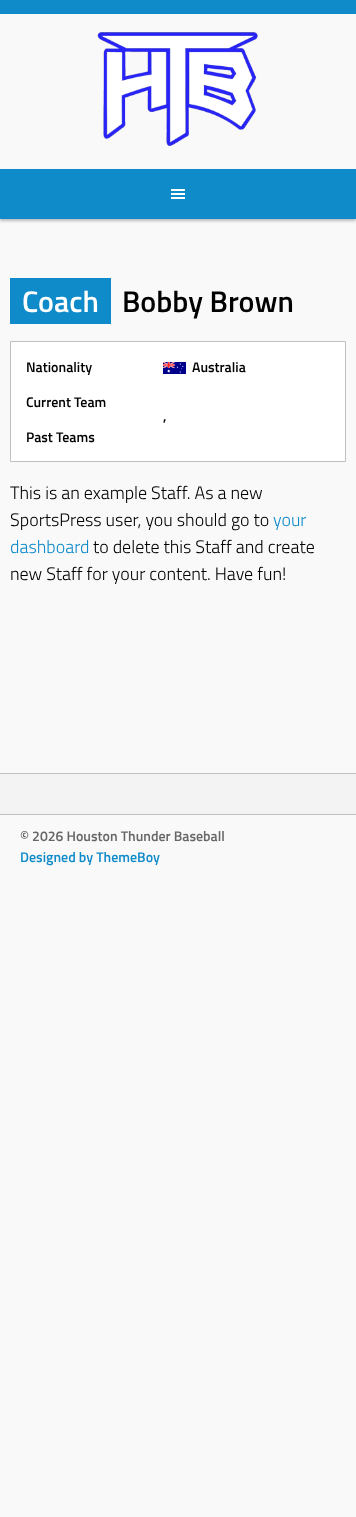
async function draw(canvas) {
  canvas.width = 356;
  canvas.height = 1517;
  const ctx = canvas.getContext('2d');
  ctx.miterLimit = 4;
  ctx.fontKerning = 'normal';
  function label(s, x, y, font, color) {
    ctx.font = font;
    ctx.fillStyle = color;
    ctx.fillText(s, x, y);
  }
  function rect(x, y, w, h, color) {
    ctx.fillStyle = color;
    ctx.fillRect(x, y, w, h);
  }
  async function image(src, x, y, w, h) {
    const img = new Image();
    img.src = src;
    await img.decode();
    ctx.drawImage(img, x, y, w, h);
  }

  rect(0, 0, 356, 1517, '#f9f9f9');
  rect(0, 0, 356, 14, '#0f8bca');
  ctx.fillStyle = '#00000040';
  ctx.filter = 'blur(1.5px)';
  ctx.beginPath();
  ctx.rect(0, 16, 356, 205);
  ctx.fill();
  ctx.filter = 'none';
  rect(0, 14, 356, 155, '#f9f9f9');
  await image('assets/img1.png', 97, 32, 161, 114);
  rect(0, 169, 356, 50, '#0f8bca');
  await image('assets/img2.png', 171, 189, 14, 10);
  rect(10, 278, 101, 46, '#0f8bca');
  label('Coach', 22, 312, '600 30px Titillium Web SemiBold', '#fff');
  label('Bobby Brown', 122, 312, '600 30px Titillium Web SemiBold', '#000');
  ctx.fillStyle = '#fff';
  ctx.beginPath();
  ctx.rect(10.5, 341.5, 335, 120);
  ctx.fill();
  ctx.strokeStyle = '#c0c0c0';
  ctx.stroke();
  label('Nationality', 26, 372, '600 14px Titillium Web SemiBold', '#000');
  await image('assets/img3.png', 163, 362, 23, 12);
  label('Australia', 192, 372, '600 14px Titillium Web SemiBold', '#000');
  label('Current Team', 26, 407, '600 14px Titillium Web SemiBold', '#000');
  label(',', 163, 421, '600 14px Titillium Web SemiBold', '#000');
  label('Past Teams', 26, 442, '600 14px Titillium Web SemiBold', '#000');
  label('This is an example Staff. As a new', 10, 499, '300 18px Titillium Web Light', '#000');
  label('SportsPress user, you should go to', 10, 526, '300 18px Titillium Web Light', '#000');
  label('your', 273, 526, '300 18px Titillium Web Light', '#0f8bca');
  label('dashboard', 10, 553, '300 18px Titillium Web Light', '#0f8bca');
  label('to delete this Staff and create', 93, 553, '300 18px Titillium Web Light', '#000');
  label('new Staff for your content. Have fun!', 10, 580, '300 18px Titillium Web Light', '#000');
  rect(0, 774, 356, 40, '#f3f3f3');
  rect(0, 773, 356, 1, '#c0c0c0');
  rect(0, 814, 356, 1, '#c0c0c0');
  label('© 2026 Houston Thunder Baseball', 20, 841, '600 14px Titillium Web SemiBold', '#666');
  label('Designed by ThemeBoy', 20, 862, '600 14px Titillium Web SemiBold', '#0f8bca');
}

draw(document.querySelector('canvas'));
